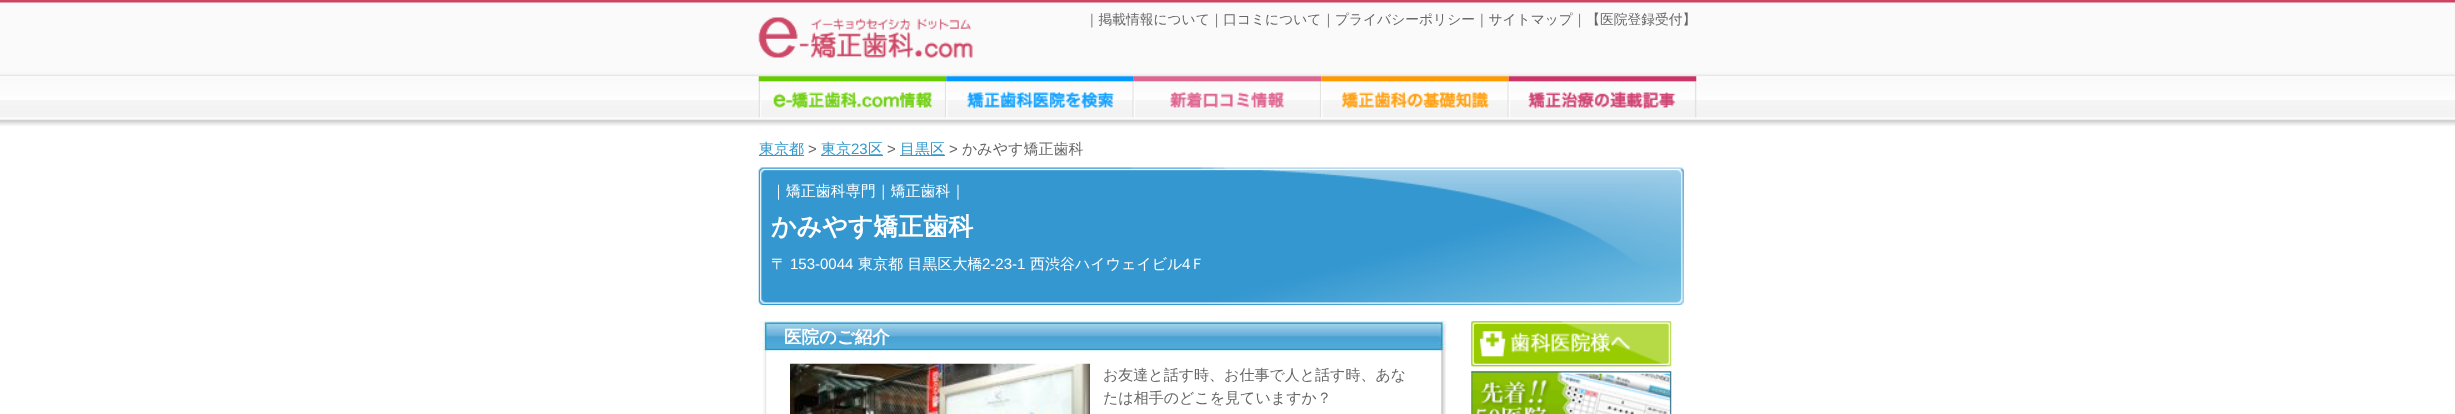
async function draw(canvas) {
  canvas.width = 2455;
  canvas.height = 414;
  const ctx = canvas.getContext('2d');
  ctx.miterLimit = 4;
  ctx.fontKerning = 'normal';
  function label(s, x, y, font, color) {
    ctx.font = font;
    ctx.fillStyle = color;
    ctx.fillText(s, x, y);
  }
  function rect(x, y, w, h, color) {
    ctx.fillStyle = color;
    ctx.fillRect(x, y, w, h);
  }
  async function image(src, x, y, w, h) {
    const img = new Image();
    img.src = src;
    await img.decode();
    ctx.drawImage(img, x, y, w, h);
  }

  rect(0, 0, 2455, 414, '#fff');
  await image('assets/img1.png', 0, 0, 2455, 126);
  await image('assets/img2.png', 758, 17, 215, 41);
  label('｜掲載情報について｜口コミについて｜プライバシーポリシー｜サイトマップ｜【医院登録受付】', 1085, 24, '500 13.75px WenQuanYi Zen Hei', '#666');
  await image('assets/img3.png', 758, 76, 189, 42);
  await image('assets/img4.png', 946, 76, 188, 42);
  await image('assets/img5.png', 1133, 76, 189, 42);
  await image('assets/img6.png', 1321, 76, 188, 42);
  await image('assets/img7.png', 1508, 76, 189, 42);
  rect(759, 155, 45, 1, '#39c');
  label('東京都', 759, 154, '500 15px WenQuanYi Zen Hei', '#39c');
  label('>', 808, 154, '15px Liberation Sans', '#666');
  rect(821, 155, 62, 1, '#39c');
  label('東京', 821, 154, '500 15px WenQuanYi Zen Hei', '#39c');
  label('23', 851, 154, '15px Liberation Sans', '#39c');
  label('区', 868, 154, '500 15px WenQuanYi Zen Hei', '#39c');
  label('>', 887, 154, '15px Liberation Sans', '#666');
  rect(900, 155, 45, 1, '#39c');
  label('目黒区', 900, 154, '500 15px WenQuanYi Zen Hei', '#39c');
  label('>', 949, 154, '15px Liberation Sans', '#666');
  label('かみやす矯正歯科', 962, 154, '500 15px WenQuanYi Zen Hei', '#666');
  await image('assets/img8.png', 758, 167, 926, 138);
  label('｜矯正歯科専門｜矯正歯科｜', 771, 196, '500 15px WenQuanYi Zen Hei', '#fff');
  label('かみやす矯正歯科', 771, 235, 'bold 25px WenQuanYi Zen Hei', '#fff');
  label('〒', 771, 269, '500 15px WenQuanYi Zen Hei', '#fff');
  label('153-0044', 790, 269, '15px Liberation Sans', '#fff');
  label('東京都 目黒区大橋', 858, 269, '500 15px WenQuanYi Zen Hei', '#fff');
  label('2-23-1', 982, 269, '15px Liberation Sans', '#fff');
  label('西渋谷ハイウェイビル', 1030, 269, '500 15px WenQuanYi Zen Hei', '#fff');
  label('4', 1182, 269, '15px Liberation Sans', '#fff');
  label('Ｆ', 1190, 269, '500 15px WenQuanYi Zen Hei', '#fff');
  await image('assets/img9.png', 763, 321, 683, 93);
  await image('assets/img10.png', 758, 321, 689, 31);
  label('医院のご紹介', 784, 343, 'bold 17.5px WenQuanYi Zen Hei', '#fff');
  await image('assets/img11.png', 790, 363, 300, 51);
  label('お友達と話す時、お仕事で人と話す時、あな', 1103, 380, '500 15px WenQuanYi Zen Hei', '#666');
  label('たは相手のどこを見ていますか？', 1103, 403, '500 15px WenQuanYi Zen Hei', '#666');
  await image('assets/img12.png', 1471, 321, 201, 46);
  await image('assets/img13.png', 1471, 371, 201, 43);
}

draw(document.querySelector('canvas'));
